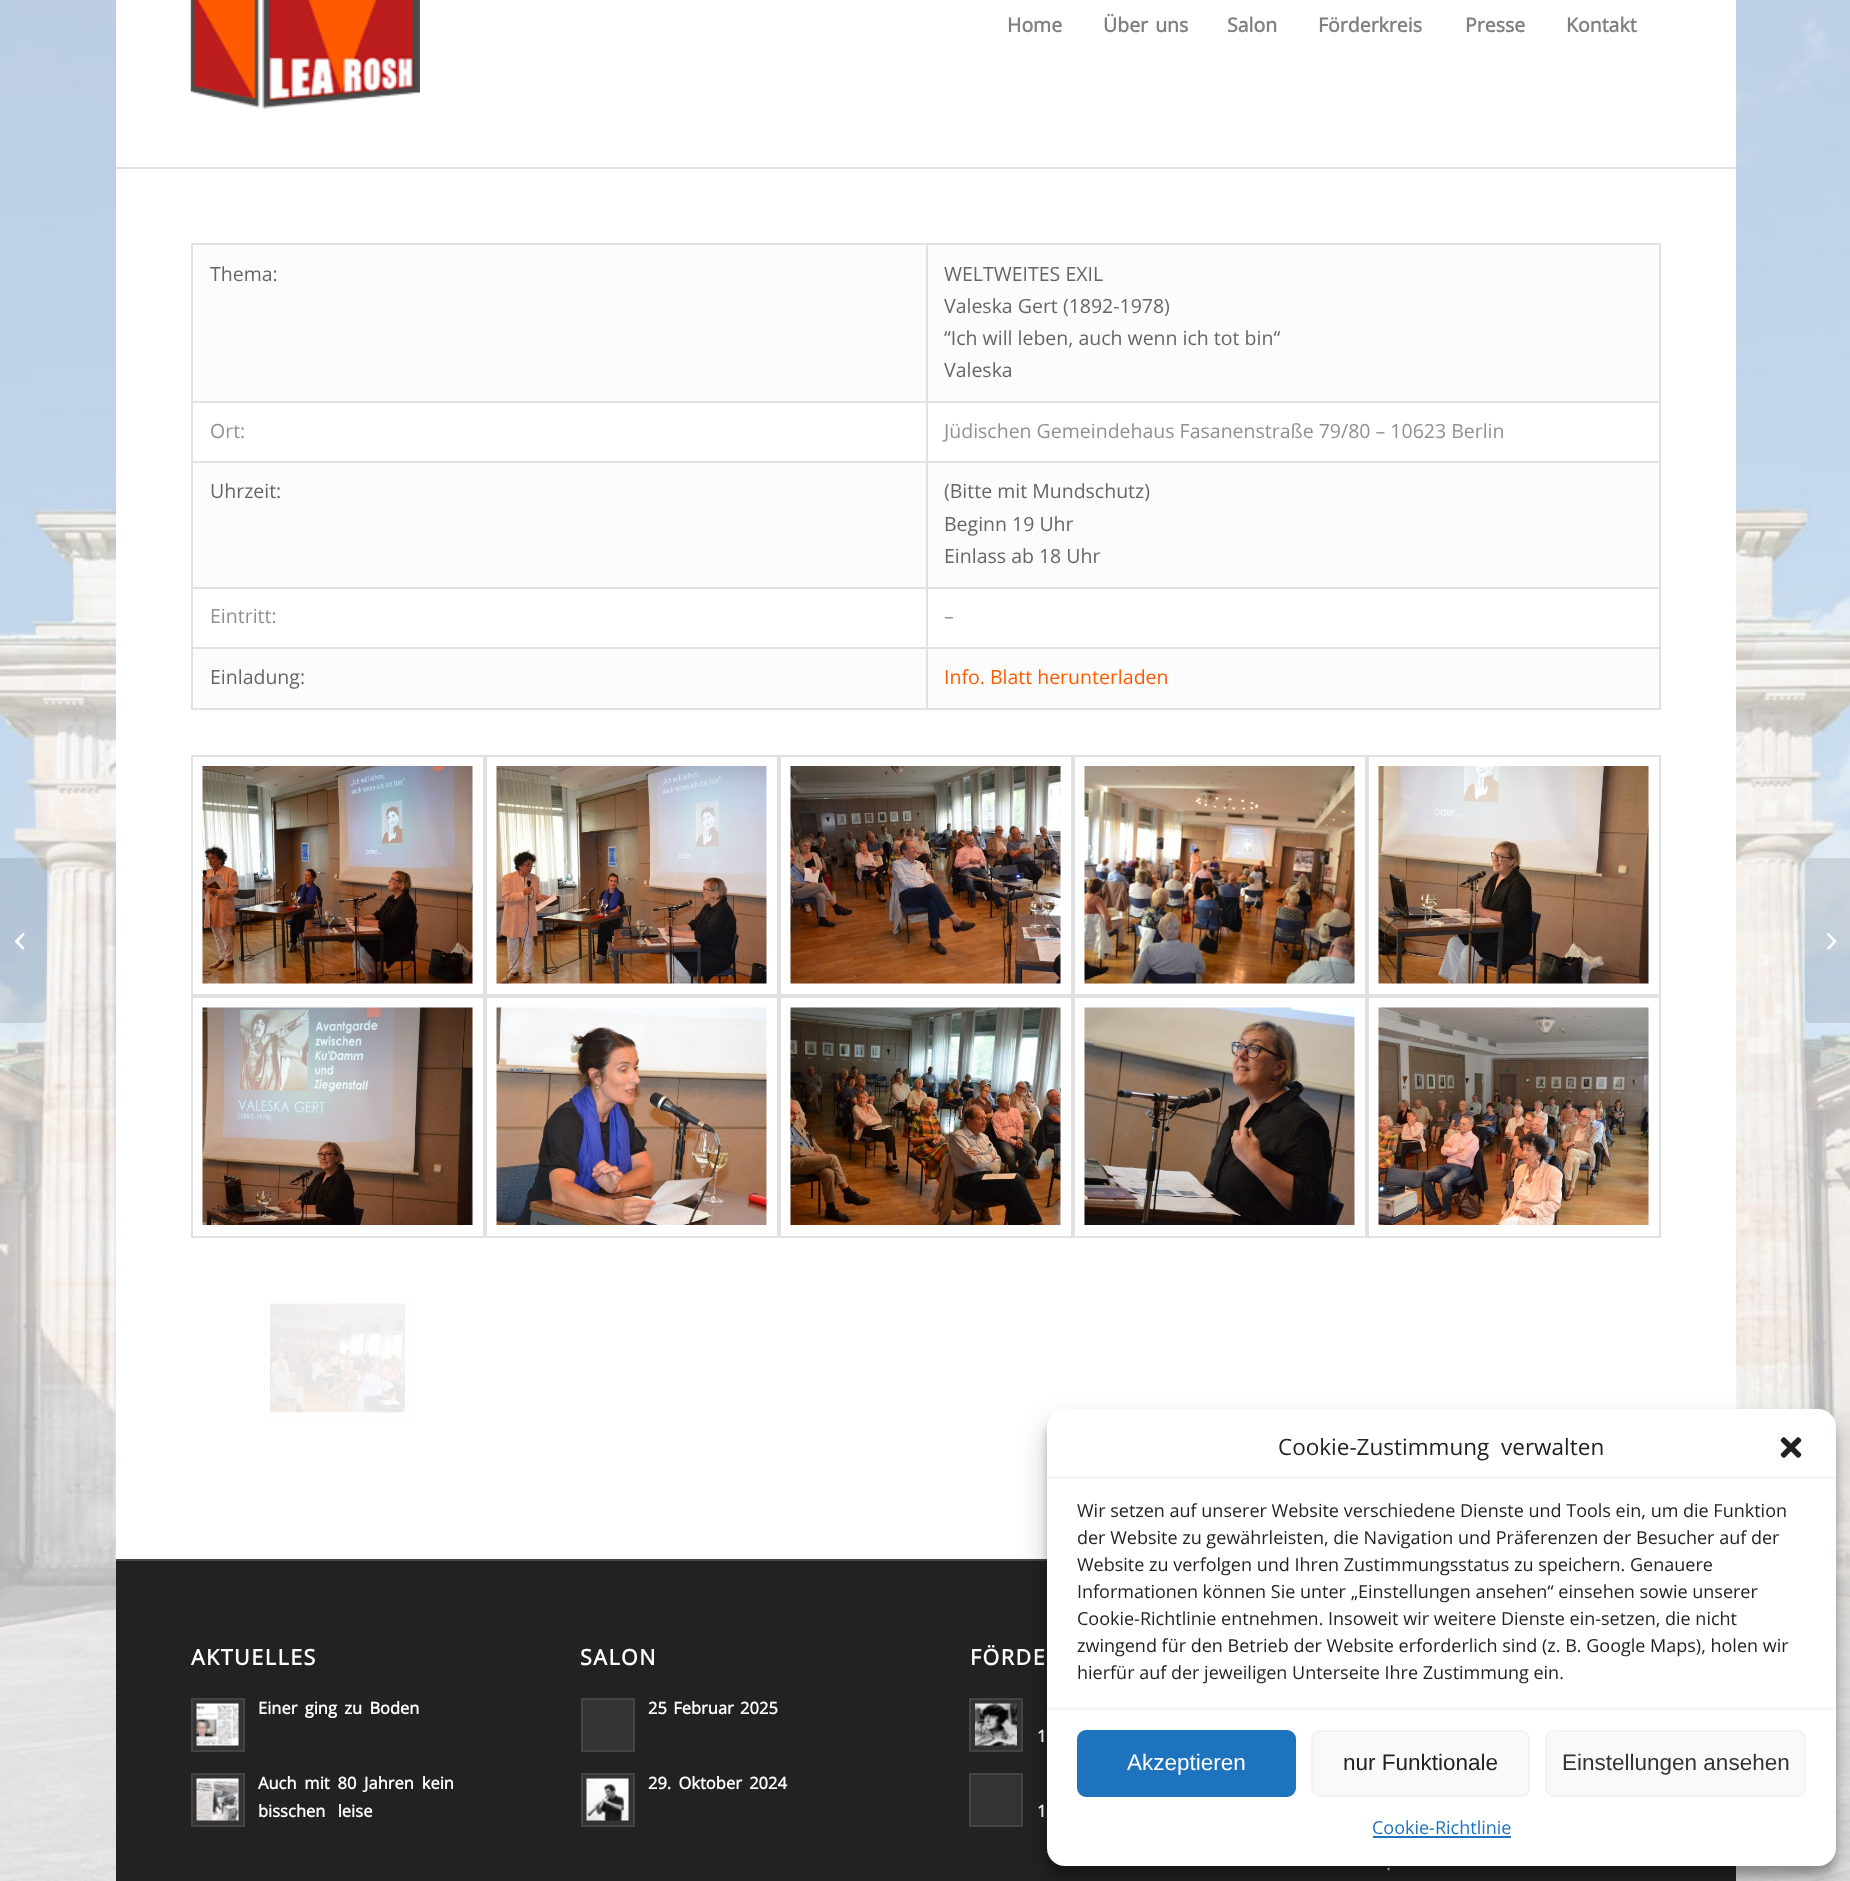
async function draw(canvas) {
  canvas.width = 1850;
  canvas.height = 1881;
  const ctx = canvas.getContext('2d');
  ctx.miterLimit = 4;
  ctx.fontKerning = 'normal';
  function label(s, x, y, font, color) {
    ctx.font = font;
    ctx.fillStyle = color;
    ctx.fillText(s, x, y);
  }
  function rect(x, y, w, h, color) {
    ctx.fillStyle = color;
    ctx.fillRect(x, y, w, h);
  }
  function roundedRect(x, y, w, h, r, color) {
    ctx.fillStyle = color;
    ctx.beginPath();
    ctx.roundRect(x, y, w, h, r);
    ctx.fill();
  }
  async function image(src, x, y, w, h) {
    const img = new Image();
    img.src = src;
    await img.decode();
    ctx.drawImage(img, x, y, w, h);
  }
  let path;

  rect(0, 0, 1850, 1881, '#fff');
  await image('assets/img1.png', 0, 0, 1850, 1881);
  rect(116, 0, 1620, 167, '#fff');
  rect(116, 167, 1620, 2, '#e1e1e1');
  await image('assets/img2.png', 190, 0, 230, 109);
  label('Home', 1007, 32, 'bold 19.5px Open Sans', '#808080');
  ctx.wordSpacing = '2px';
  label('Über uns', 1103, 32, 'bold 19.5px Open Sans', '#808080');
  ctx.wordSpacing = '0px';
  label('Salon', 1227, 32, 'bold 19.5px Open Sans', '#808080');
  label('Förderkreis', 1318, 32, 'bold 19.5px Open Sans', '#808080');
  label('Presse', 1465, 32, 'bold 19.5px Open Sans', '#808080');
  label('Kontakt', 1566, 32, 'bold 19.5px Open Sans', '#808080');
  ctx.fillStyle = '#0000001a';
  ctx.beginPath();
  ctx.roundRect(0, 858, 47, 165, [0, 6, 6, 0]);
  ctx.fill();
  await image('assets/img3.png', 15, 933, 10, 17);
  rect(116, 169, 1620, 1390, '#fff');
  rect(193, 245, 1466, 463, '#fcfcfc');
  rect(191, 243, 1470, 2, '#e1e1e1');
  rect(1659, 401, 2, 309, '#e1e1e1');
  rect(1659, 243, 2, 159, '#e1e1e1');
  rect(193, 403, 1466, 58, '#fff');
  rect(193, 589, 1466, 58, '#fff');
  rect(926, 708, 735, 2, '#e1e1e1');
  rect(926, 647, 2, 63, '#e1e1e1');
  rect(926, 647, 735, 2, '#e1e1e1');
  rect(926, 587, 2, 61, '#e1e1e1');
  rect(926, 587, 735, 2, '#e1e1e1');
  rect(926, 461, 2, 127, '#e1e1e1');
  rect(926, 461, 735, 2, '#e1e1e1');
  rect(926, 401, 2, 61, '#e1e1e1');
  rect(926, 401, 735, 2, '#e1e1e1');
  rect(926, 243, 2, 159, '#e1e1e1');
  rect(191, 708, 736, 2, '#e1e1e1');
  rect(191, 647, 2, 63, '#e1e1e1');
  rect(191, 647, 736, 2, '#e1e1e1');
  rect(191, 587, 2, 61, '#e1e1e1');
  rect(191, 587, 736, 2, '#e1e1e1');
  rect(191, 461, 2, 127, '#e1e1e1');
  rect(191, 461, 736, 2, '#e1e1e1');
  rect(191, 401, 2, 61, '#e1e1e1');
  rect(191, 401, 736, 2, '#e1e1e1');
  rect(191, 243, 2, 159, '#e1e1e1');
  label('Thema:', 210, 281, '19.5px Open Sans', '#666');
  label('WELTWEITES EXIL', 944, 281, '19.5px Open Sans', '#666');
  label('Valeska Gert (1892-1978)', 944, 313, '19.5px Open Sans', '#666');
  label('“Ich will leben, auch wenn ich tot bin“', 944, 345, '19.5px Open Sans', '#666');
  label('Valeska', 944, 377, '19.5px Open Sans', '#666');
  label('Ort:', 210, 438, '19.5px Open Sans', '#919191');
  label('Jüdischen Gemeindehaus Fasanenstraße 79/80 – 10623 Berlin', 944, 438, '19.5px Open Sans', '#919191');
  label('Uhrzeit:', 210, 498, '19.5px Open Sans', '#666');
  label('(Bitte mit Mundschutz)', 944, 498, '19.5px Open Sans', '#666');
  label('Beginn 19 Uhr', 944, 531, '19.5px Open Sans', '#666');
  label('Einlass ab 18 Uhr', 944, 563, '19.5px Open Sans', '#666');
  label('Eintritt:', 210, 623, '19.5px Open Sans', '#919191');
  label('–', 944, 623, '19.5px Open Sans', '#919191');
  label('Einladung:', 210, 684, '19.5px Open Sans', '#666');
  label('Info. Blatt herunterladen', 944, 684, '19.5px Open Sans', '#ff5900');
  ctx.strokeStyle = '#e1e1e1';
  ctx.lineWidth = 2;
  ctx.strokeRect(192, 756, 292, 239);
  await image('assets/img4.png', 202, 766, 271, 218);
  ctx.strokeRect(486, 756, 292, 239);
  await image('assets/img5.png', 496, 766, 271, 218);
  ctx.strokeRect(780, 756, 292, 239);
  await image('assets/img6.png', 790, 766, 271, 218);
  ctx.strokeRect(1074, 756, 292, 239);
  await image('assets/img7.png', 1084, 766, 271, 218);
  ctx.strokeRect(1368, 756, 292, 239);
  await image('assets/img8.png', 1378, 766, 271, 218);
  ctx.strokeRect(192, 997, 292, 240);
  await image('assets/img9.png', 202, 1007, 271, 218);
  ctx.strokeRect(486, 997, 292, 240);
  await image('assets/img10.png', 496, 1007, 271, 218);
  ctx.strokeRect(780, 997, 292, 240);
  await image('assets/img11.png', 790, 1007, 271, 218);
  ctx.strokeRect(1074, 997, 292, 240);
  await image('assets/img12.png', 1084, 1007, 271, 218);
  ctx.strokeRect(1368, 997, 292, 240);
  await image('assets/img13.png', 1378, 1007, 271, 218);
  ctx.strokeStyle = '#fcfcfc';
  ctx.lineWidth = 0.8;
  ctx.strokeRect(264.4, 1299.4, 146.2, 121.2);
  await image('assets/img14.png', 270, 1303, 135, 110);
  rect(116, 1561, 1620, 320, '#222');
  rect(116, 1559, 931, 2, '#444');
  ctx.letterSpacing = '1.5px';
  label('AKTUELLES', 191, 1665, 'bold 21.5px Open Sans', '#fff');
  ctx.fillStyle = '#333';
  ctx.beginPath();
  ctx.rect(192, 1699, 52, 52);
  ctx.fill();
  ctx.strokeStyle = '#444';
  ctx.lineWidth = 2;
  ctx.stroke();
  await image('assets/img15.png', 196, 1703, 43, 43);
  ctx.letterSpacing = '0px';
  ctx.wordSpacing = '3px';
  label('Einer ging zu Boden', 258, 1714, 'bold 16.5px Open Sans', '#fff');
  ctx.fillStyle = '#333';
  ctx.beginPath();
  ctx.rect(192, 1774, 52, 52);
  ctx.fill();
  ctx.stroke();
  await image('assets/img16.png', 196, 1778, 43, 43);
  ctx.wordSpacing = '3.5px';
  label('Auch mit 80 Jahren kein', 258, 1789, 'bold 16.5px Open Sans', '#fff');
  ctx.wordSpacing = '8px';
  label('bisschen leise', 258, 1817, 'bold 16.5px Open Sans', '#fff');
  ctx.letterSpacing = '1.5px';
  ctx.wordSpacing = '0px';
  label('SALON', 580, 1665, 'bold 21.5px Open Sans', '#fff');
  ctx.fillStyle = '#333';
  ctx.beginPath();
  ctx.rect(582, 1699, 52, 52);
  ctx.fill();
  ctx.stroke();
  ctx.letterSpacing = '0px';
  ctx.wordSpacing = '2px';
  label('25 Februar 2025', 648, 1714, 'bold 16.5px Open Sans', '#fff');
  ctx.fillStyle = '#333';
  ctx.beginPath();
  ctx.rect(582, 1774, 52, 52);
  ctx.fill();
  ctx.stroke();
  await image('assets/img17.png', 586, 1778, 43, 43);
  ctx.wordSpacing = '3px';
  label('29. Oktober 2024', 648, 1789, 'bold 16.5px Open Sans', '#fff');
  ctx.letterSpacing = '1.5px';
  ctx.wordSpacing = '0px';
  label('FÖRDE', 970, 1665, 'bold 21.5px Open Sans', '#fff');
  ctx.fillStyle = '#333';
  ctx.beginPath();
  ctx.rect(970, 1699, 52, 52);
  ctx.fill();
  ctx.stroke();
  await image('assets/img18.png', 975, 1703, 42, 43);
  ctx.letterSpacing = '0px';
  ctx.wordSpacing = '2px';
  label('1', 1037, 1742, 'bold 16.5px Open Sans', '#fff');
  ctx.fillStyle = '#333';
  ctx.beginPath();
  ctx.rect(970, 1774, 52, 52);
  ctx.fill();
  ctx.stroke();
  label('1', 1037, 1817, 'bold 16.5px Open Sans', '#fff');
  ctx.wordSpacing = '0px';
  label('.', 1386, 1870, '19.5px Open Sans', '#ddd');
  ctx.fillStyle = '#0000001a';
  path = new Path2D('M1811 858H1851V1023H1811C1807.5 1023 1805 1020.5 1805 1017V864C1805 860.5 1807.5 858 1811 858Z');
  ctx.fill(path);
  await image('assets/img19.png', 1827, 933, 10, 17);
  ctx.fillStyle = '#0000003b';
  ctx.filter = 'blur(4.5px)';
  ctx.beginPath();
  ctx.roundRect(1047, 1418, 789, 457, 18);
  ctx.fill();
  ctx.filter = 'none';
  ctx.fillStyle = '#00000030';
  ctx.filter = 'blur(15px)';
  ctx.beginPath();
  ctx.roundRect(1047, 1424, 789, 457, 18);
  ctx.fill();
  ctx.filter = 'none';
  roundedRect(1047, 1409, 789, 457, 18, '#fff');
  ctx.wordSpacing = '6px';
  label('Cookie-Zustimmung verwalten', 1278, 1455, '22.5px Open Sans', '#222');
  await image('assets/img20.png', 1780, 1437, 22, 21);
  ctx.save();
  ctx.beginPath();
  ctx.rect(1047, 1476, 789, 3);
  ctx.clip();
  ctx.fillStyle = '#0000000d';
  ctx.filter = 'blur(2px)';
  ctx.beginPath();
  ctx.rect(1047, 1476, 789, 5);
  ctx.fill();
  ctx.filter = 'none';
  ctx.restore();
  ctx.wordSpacing = '0px';
  label('Wir setzen auf unserer Website verschiedene Dienste und Tools ein, um die Funktion', 1077, 1517, '18px Open Sans', '#222');
  label('der Website zu gewährleisten, die Navigation und Präferenzen der Besucher auf der', 1077, 1544, '18px Open Sans', '#222');
  label('Website zu verfolgen und Ihren Zustimmungsstatus zu speichern. Genauere', 1077, 1571, '18px Open Sans', '#222');
  label('Informationen können Sie unter „Einstellungen ansehen“ einsehen sowie unserer', 1077, 1598, '18px Open Sans', '#222');
  label('Cookie-Richtlinie entnehmen. Insoweit wir weitere Dienste ein-setzen, die nicht', 1077, 1625, '18px Open Sans', '#222');
  label('zwingend für den Betrieb der Website erforderlich sind (z. B. Google Maps), holen wir', 1077, 1652, '18px Open Sans', '#222');
  label('hierfür auf der jeweiligen Unterseite Ihre Zustimmung ein.', 1077, 1679, '18px Open Sans', '#222');
  ctx.save();
  ctx.beginPath();
  ctx.rect(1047, 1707, 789, 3);
  ctx.clip();
  ctx.fillStyle = '#0000000d';
  ctx.filter = 'blur(2px)';
  ctx.beginPath();
  ctx.rect(1047, 1707, 789, 5);
  ctx.fill();
  ctx.filter = 'none';
  ctx.restore();
  ctx.fillStyle = '#1e73be';
  ctx.beginPath();
  ctx.roundRect(1078, 1731, 217, 65, 8);
  ctx.fill();
  ctx.strokeStyle = '#1e73be';
  ctx.stroke();
  label('Akzeptieren', 1127, 1770, '22.5px Liberation Sans', '#fff');
  ctx.fillStyle = '#f9f9f9';
  ctx.beginPath();
  ctx.roundRect(1312, 1731, 217, 65, 8);
  ctx.fill();
  ctx.strokeStyle = '#f2f2f2';
  ctx.stroke();
  label('nur Funktionale', 1343, 1770, '22.5px Liberation Sans', '#222');
  ctx.fillStyle = '#f9f9f9';
  ctx.beginPath();
  ctx.roundRect(1546, 1731, 259, 65, 8);
  ctx.fill();
  ctx.stroke();
  label('Einstellungen ansehen', 1562, 1770, '22.5px Liberation Sans', '#333');
  label('Cookie-Richtlinie', 1372, 1834, '18px Open Sans', '#1e73be');
  rect(1373, 1836, 138, 2, '#1e73be');
}

draw(document.querySelector('canvas'));
